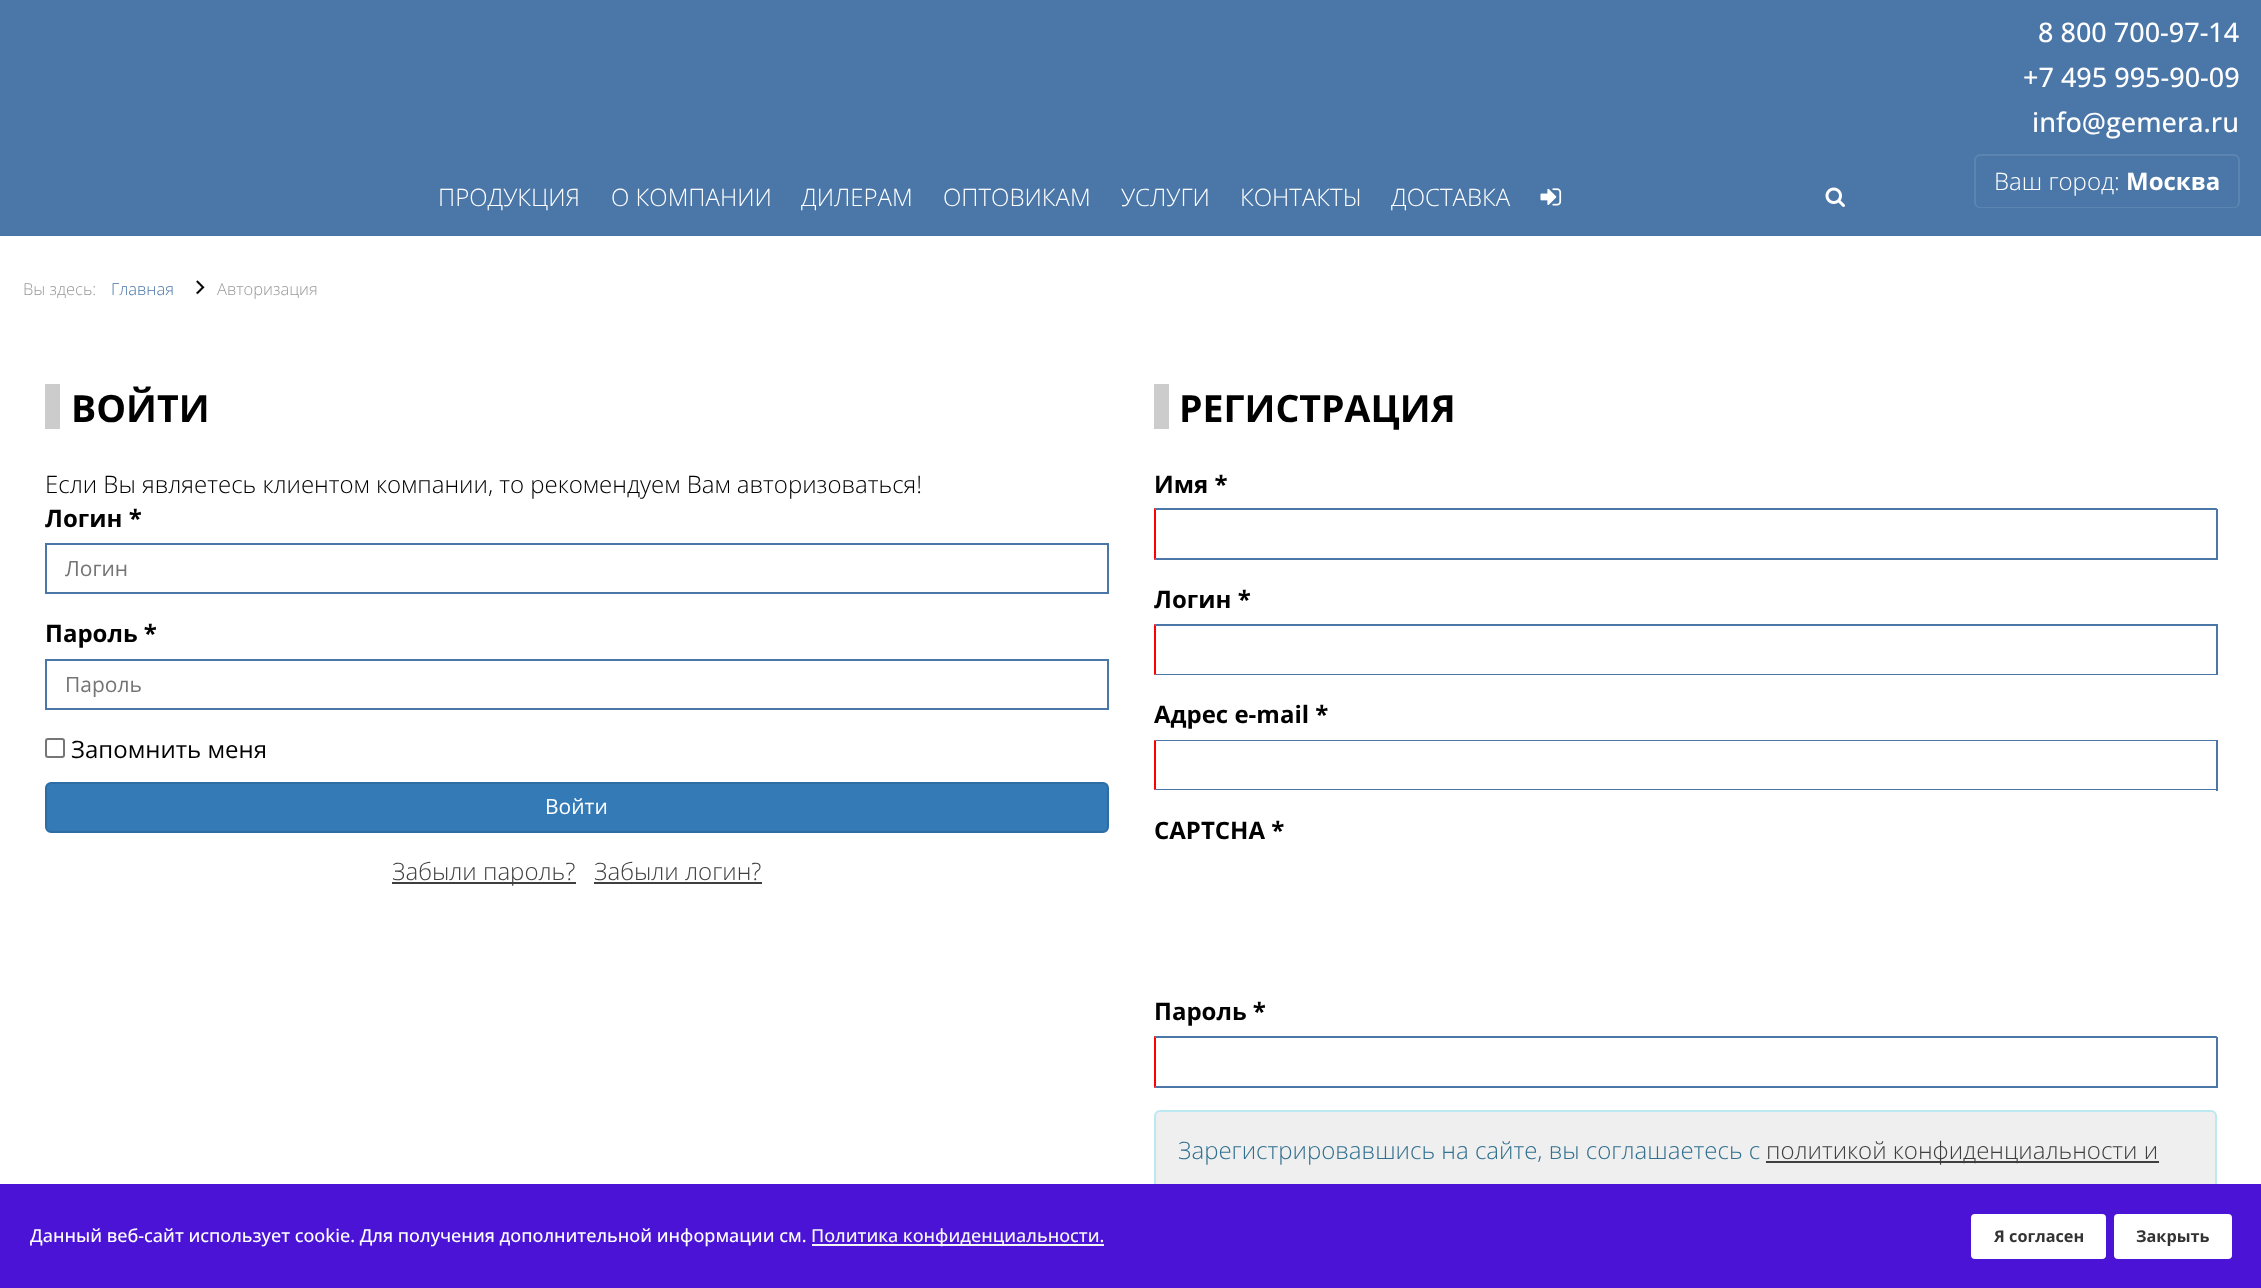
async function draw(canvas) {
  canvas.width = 2261;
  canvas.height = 1288;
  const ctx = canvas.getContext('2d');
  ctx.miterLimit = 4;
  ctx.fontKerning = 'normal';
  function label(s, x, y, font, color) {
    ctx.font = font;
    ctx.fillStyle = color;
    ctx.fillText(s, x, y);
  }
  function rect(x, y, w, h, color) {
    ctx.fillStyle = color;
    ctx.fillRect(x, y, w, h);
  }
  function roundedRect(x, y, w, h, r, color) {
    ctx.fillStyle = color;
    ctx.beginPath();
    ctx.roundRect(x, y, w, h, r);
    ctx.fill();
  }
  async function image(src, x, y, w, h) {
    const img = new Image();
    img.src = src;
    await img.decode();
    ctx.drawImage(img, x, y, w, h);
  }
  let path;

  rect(0, 0, 2261, 1288, '#fff');
  rect(0, 0, 2261, 236, '#4a76a8');
  label('8 800 700-97-14', 2038, 42, '500 27px Open Sans', '#fff');
  label('+7 495 995-90-09', 2023, 87, '500 27px Open Sans', '#fff');
  label('info@gemera.ru', 2032, 132, '500 27px Open Sans', '#fff');
  ctx.fillStyle = '#5c84b1';
  path = new Path2D('M1980 154H2126V208H1980C1977 208 1974 206 1974 202V160C1974 157 1977 154 1980 154ZM1980 156H2126V207H1980C1978 207 1976 205 1976 202V160C1976 158 1978 156 1980 156Z');
  ctx.fill(path, 'evenodd');
  label('Ваш город:', 1994, 190, '300 24px Open Sans', '#fff');
  ctx.fillStyle = '#5c84b1';
  path = new Path2D('M2126 154H2234C2237 154 2240 157 2240 160V202C2240 206 2237 208 2234 208H2126ZM2126 156H2234C2236 156 2238 158 2238 160V202C2238 205 2236 207 2234 207H2126Z');
  ctx.fill(path, 'evenodd');
  label('Москва', 2126, 190, 'bold 24px Open Sans', '#fff');
  label('ПРОДУКЦИЯ', 438, 206, '300 24px Open Sans', '#fff');
  label('О КОМПАНИИ', 611, 206, '300 24px Open Sans', '#fff');
  label('ДИЛЕРАМ', 801, 206, '300 24px Open Sans', '#fff');
  label('ОПТОВИКАМ', 943, 206, '300 24px Open Sans', '#fff');
  label('УСЛУГИ', 1121, 206, '300 24px Open Sans', '#fff');
  label('КОНТАКТЫ', 1240, 206, '300 24px Open Sans', '#fff');
  label('ДОСТАВКА', 1391, 206, '300 24px Open Sans', '#fff');
  await image('assets/img1.png', 1540, 188, 22, 18);
  await image('assets/img2.png', 1825, 187, 20, 20);
  label('Вы здесь:', 23, 295, '300 16.5px Open Sans', '#999');
  await image('assets/img3.png', 196, 280, 9, 15);
  label('Главная', 111, 295, '300 16.5px Open Sans', '#4a76a8');
  label('Авторизация', 217, 295, '300 16.5px Open Sans', '#999');
  rect(45, 384, 15, 45, '#ccc');
  label('ВОЙТИ', 71, 422, 'bold 37.5px Open Sans', '#000');
  label('Если Вы являетесь клиентом компании, то рекомендуем Вам авторизоваться!', 45, 493, '300 24px Open Sans', '#000');
  label('Логин *', 45, 527, 'bold 24px Open Sans', '#000');
  ctx.strokeStyle = '#4a76a8';
  ctx.lineWidth = 2;
  ctx.strokeRect(46, 544, 1062, 49);
  label('Логин', 65, 576, '21px Open Sans', '#757575');
  label('Пароль *', 45, 642, 'bold 24px Open Sans', '#000');
  ctx.strokeRect(46, 660, 1062, 49);
  label('Пароль', 65, 692, '21px Open Sans', '#757575');
  ctx.beginPath();
  ctx.roundRect(46, 739, 18, 18, 2);
  ctx.strokeStyle = '#767676';
  ctx.stroke();
  label('Запомнить меня', 71, 758, '24px Open Sans', '#000');
  ctx.fillStyle = '#337ab7';
  ctx.beginPath();
  ctx.roundRect(46, 783, 1062, 49, 5);
  ctx.fill();
  ctx.strokeStyle = '#2e6da4';
  ctx.stroke();
  label('Войти', 545, 814, '21px Open Sans', '#fff');
  rect(392, 882, 184, 2, '#3f3f3f');
  label('Забыли пароль?', 392, 880, '300 24px Open Sans', '#3f3f3f');
  label('Забыли логин?', 594, 880, '300 24px Open Sans', '#3f3f3f');
  rect(594, 882, 168, 2, '#3f3f3f');
  rect(1154, 384, 15, 45, '#ccc');
  label('РЕГИСТРАЦИЯ', 1179, 422, 'bold 37.5px Open Sans', '#000');
  label('Имя *', 1154, 493, 'bold 24px Open Sans', '#000');
  ctx.fillStyle = '#4a76a8';
  path = new Path2D('M1154 508H2217L2216 510H1156Z');
  ctx.fill(path);
  rect(2216, 509, 2, 51, '#4a76a8');
  path = new Path2D('M2217 560H1154L1156 558H2216Z');
  ctx.fill(path);
  ctx.fillStyle = '#f00';
  path = new Path2D('M1154 560V508L1156 510V558Z');
  ctx.fill(path);
  label('Логин *', 1154, 608, 'bold 24px Open Sans', '#000');
  ctx.fillStyle = '#4a76a8';
  path = new Path2D('M1154 624H2217L2216 626H1156Z');
  ctx.fill(path);
  rect(2216, 624, 2, 51, '#4a76a8');
  path = new Path2D('M2217 675H1154L1156 674H2216Z');
  ctx.fill(path);
  ctx.fillStyle = '#f00';
  path = new Path2D('M1154 675V624L1156 626V674Z');
  ctx.fill(path);
  label('Адрес e-mail *', 1154, 723, 'bold 24px Open Sans', '#000');
  ctx.fillStyle = '#4a76a8';
  path = new Path2D('M1154 740H2217L2216 741H1156Z');
  ctx.fill(path);
  rect(2216, 740, 2, 51, '#4a76a8');
  path = new Path2D('M2217 790H1154L1156 789H2216Z');
  ctx.fill(path);
  ctx.fillStyle = '#f00';
  path = new Path2D('M1154 790V740L1156 741V789Z');
  ctx.fill(path);
  label('CAPTCHA *', 1154, 839, 'bold 24px Open Sans', '#000');
  label('Пароль *', 1154, 1020, 'bold 24px Open Sans', '#000');
  ctx.fillStyle = '#4a76a8';
  path = new Path2D('M1154 1036H2217L2216 1038H1156Z');
  ctx.fill(path);
  rect(2216, 1037, 2, 51, '#4a76a8');
  path = new Path2D('M2217 1088H1154L1156 1086H2216Z');
  ctx.fill(path);
  ctx.fillStyle = '#f00';
  path = new Path2D('M1154 1088V1036L1156 1038V1086Z');
  ctx.fill(path);
  ctx.fillStyle = '#efefef';
  ctx.beginPath();
  ctx.roundRect(1155, 1111, 1061, 114, 5);
  ctx.fill();
  ctx.strokeStyle = '#bce8f1';
  ctx.stroke();
  label('Зарегистрировавшись на сайте, вы соглашаетесь с', 1178, 1159, '300 24px Open Sans', '#31708f');
  rect(1766, 1161, 393, 2, '#3f3f3f');
  label('политикой конфиденциальности и', 1766, 1159, '300 24px Open Sans', '#3f3f3f');
  rect(0, 1184, 2261, 104, '#4a13d6');
  label('Данный веб-сайт использует cookie. Для получения дополнительной информации см.', 30, 1242, '500 18px Open Sans', '#fff');
  rect(812, 1244, 292, 2, '#f5f5f5');
  label('Политика конфиденциальности.', 811, 1242, '500 18px Open Sans', '#f5f5f5');
  roundedRect(1971, 1214, 135, 45, 4, '#fff');
  label('Я согласен', 1994, 1242, 'bold 16.25px Open Sans', '#333');
  roundedRect(2114, 1214, 118, 45, 4, '#fff');
  label('Закрыть', 2136, 1242, 'bold 16.25px Open Sans', '#333');
}

draw(document.querySelector('canvas'));
